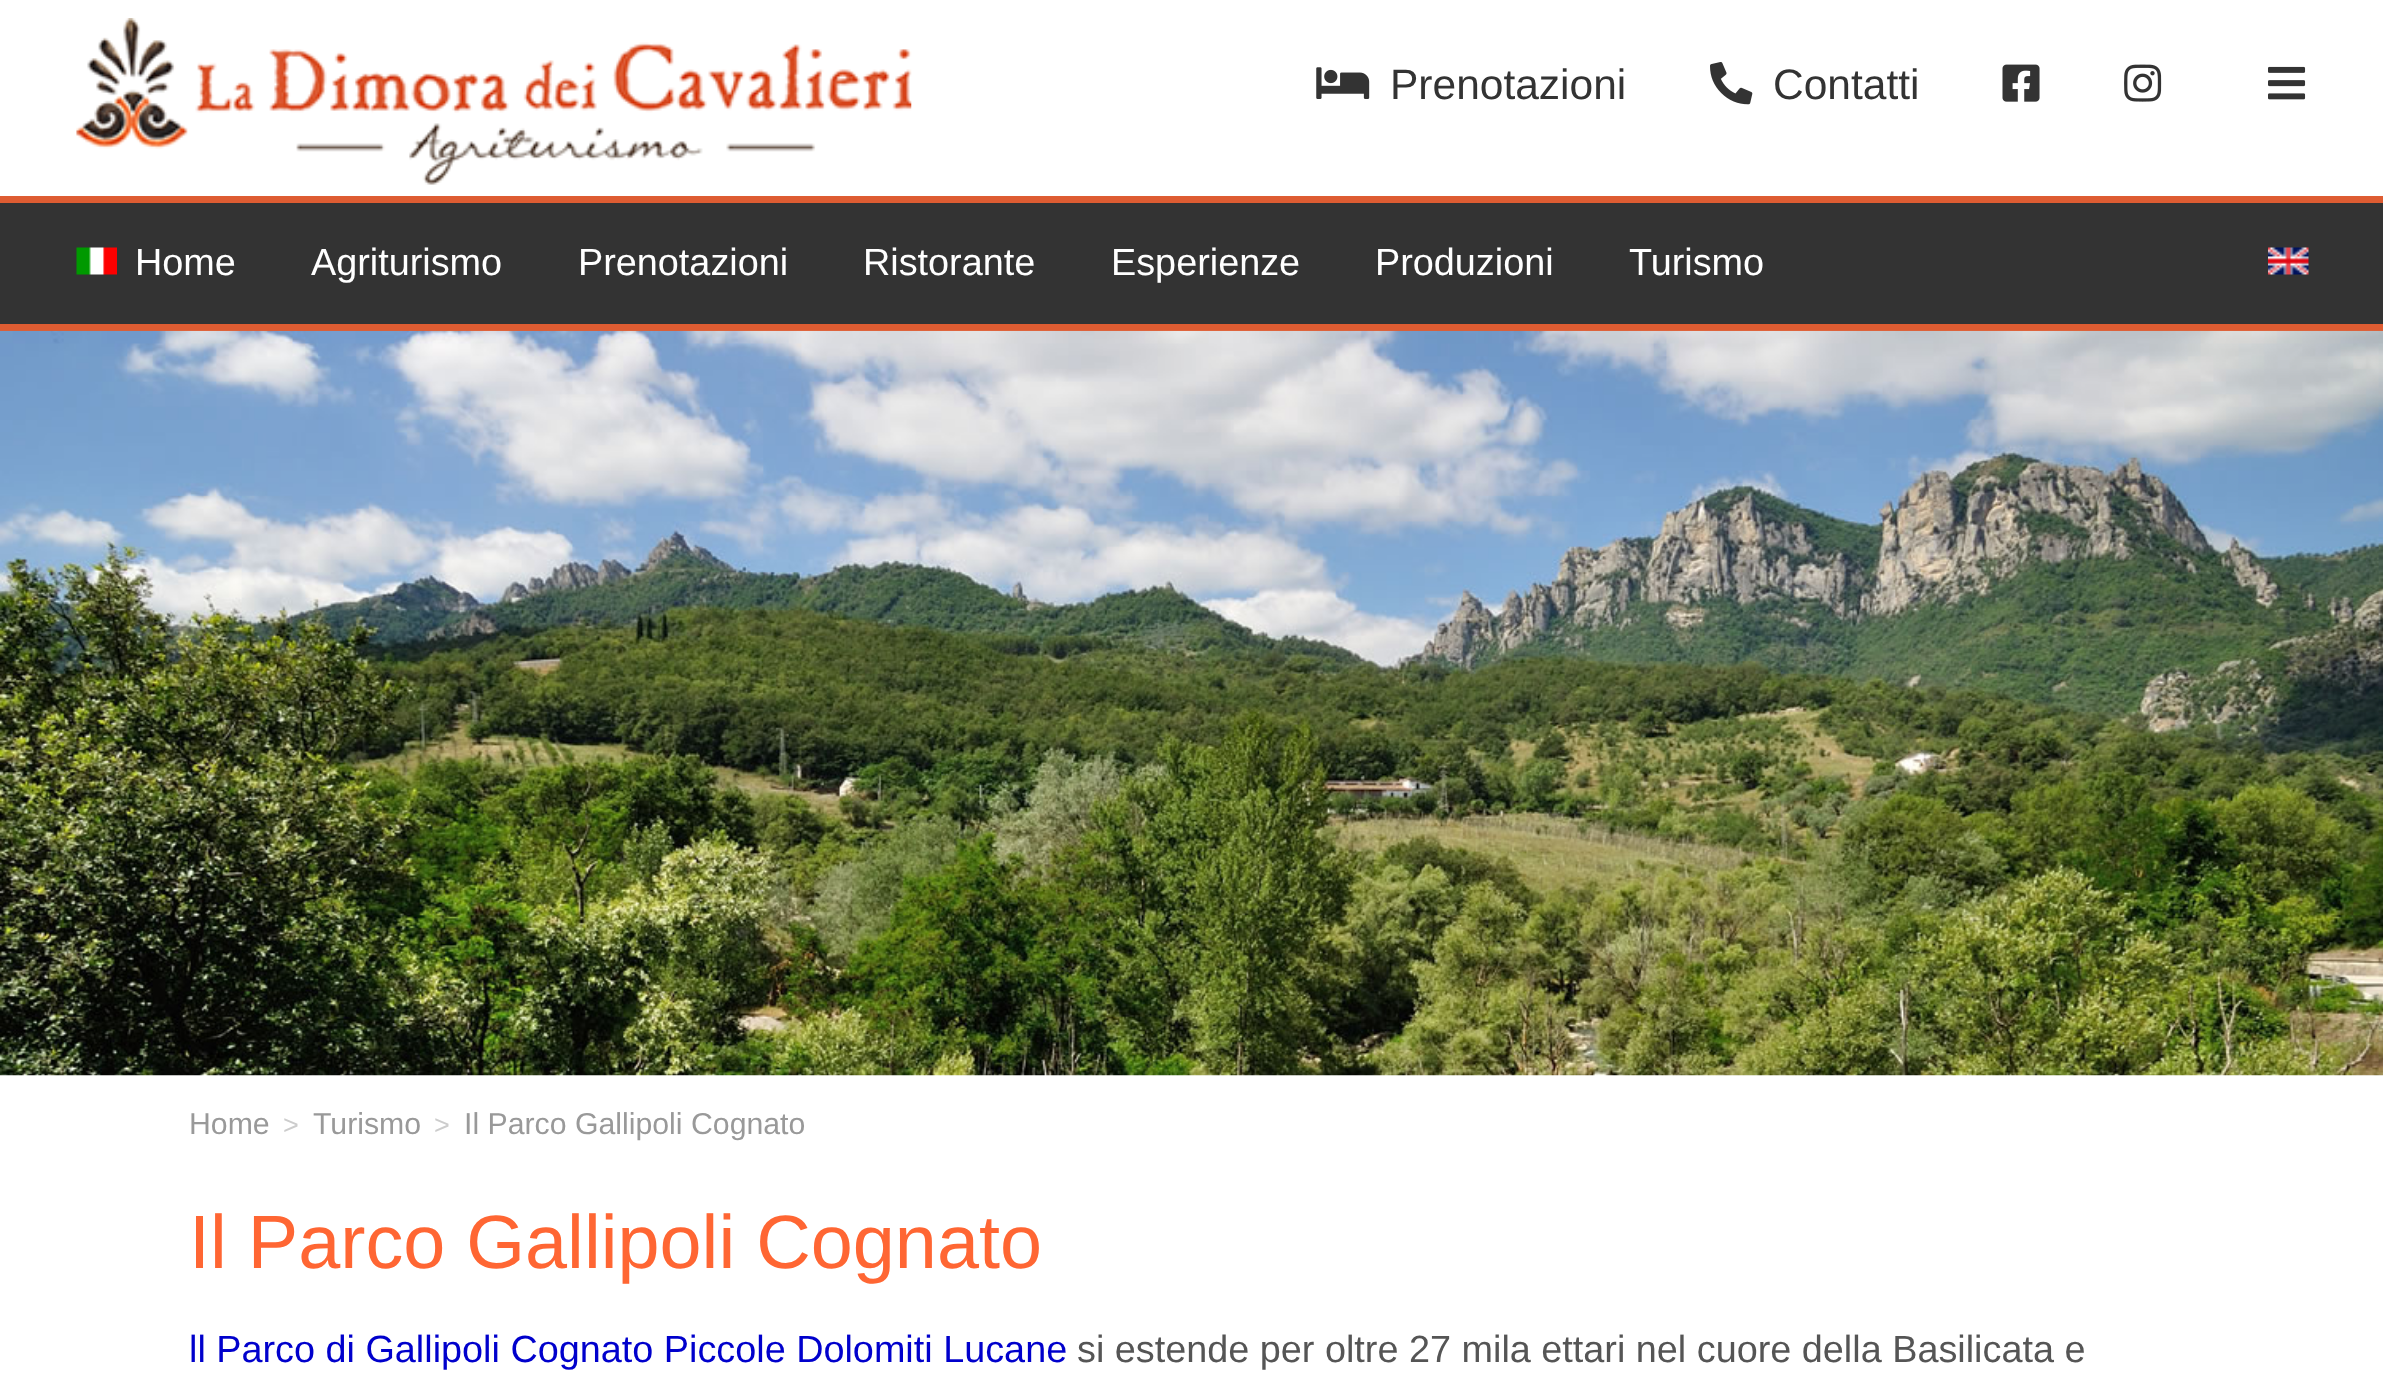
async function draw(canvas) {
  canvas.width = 2383;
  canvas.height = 1398;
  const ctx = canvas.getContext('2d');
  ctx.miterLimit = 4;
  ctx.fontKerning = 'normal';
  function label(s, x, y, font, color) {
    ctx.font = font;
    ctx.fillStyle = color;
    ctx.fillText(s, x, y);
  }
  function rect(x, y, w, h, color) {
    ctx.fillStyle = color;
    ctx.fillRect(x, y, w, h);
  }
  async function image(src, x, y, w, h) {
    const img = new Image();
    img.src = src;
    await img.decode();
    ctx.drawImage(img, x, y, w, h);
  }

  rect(0, 0, 2383, 1398, '#fff');
  rect(0, 196, 2383, 7, '#de5c32');
  await image('assets/img1.png', 76, 18, 836, 167);
  await image('assets/img2.png', 1316, 67, 54, 32);
  label('Prenotazioni', 1390, 99, '42.5px Liberation Sans', '#333');
  await image('assets/img3.png', 1710, 62, 43, 43);
  label('Contatti', 1773, 99, '42.5px Liberation Sans', '#333');
  await image('assets/img4.png', 2002, 64, 38, 38);
  await image('assets/img5.png', 2124, 64, 38, 38);
  await image('assets/img6.png', 2268, 66, 38, 34);
  rect(0, 203, 2383, 121, '#333');
  rect(0, 324, 2383, 7, '#de5c32');
  await image('assets/img7.png', 76, 247, 41, 28);
  label('Home', 135, 275, '37.8px Liberation Sans', '#fff');
  label('Agriturismo', 311, 275, '37.8px Liberation Sans', '#fff');
  label('Prenotazioni', 578, 275, '37.8px Liberation Sans', '#fff');
  label('Ristorante', 863, 275, '37.8px Liberation Sans', '#fff');
  label('Esperienze', 1111, 275, '37.8px Liberation Sans', '#fff');
  label('Produzioni', 1375, 275, '37.8px Liberation Sans', '#fff');
  label('Turismo', 1629, 275, '37.8px Liberation Sans', '#fff');
  await image('assets/img8.png', 2268, 247, 41, 28);
  await image('assets/img9.png', 0, 330, 2383, 746);
  label('Home', 189, 1134, '30.25px Liberation Sans', '#999');
  label('>', 283, 1134, '27px Liberation Sans', '#ccc');
  label('Turismo', 313, 1134, '30.25px Liberation Sans', '#999');
  label('>', 434, 1134, '27px Liberation Sans', '#ccc');
  label('Il Parco Gallipoli Cognato', 464, 1134, '30.25px Liberation Sans', '#999');
  label('Il Parco Gallipoli Cognato', 189, 1268, '75.6px Liberation Sans', '#f63');
  label('ll Parco di Gallipoli Cognato Piccole Dolomiti Lucane', 189, 1362, '37.8px Liberation Sans', '#00c');
  label('si estende per oltre 27 mila ettari nel cuore della Basilicata e', 1077, 1362, '37.8px Liberation Sans', '#555');
}

draw(document.querySelector('canvas'));
